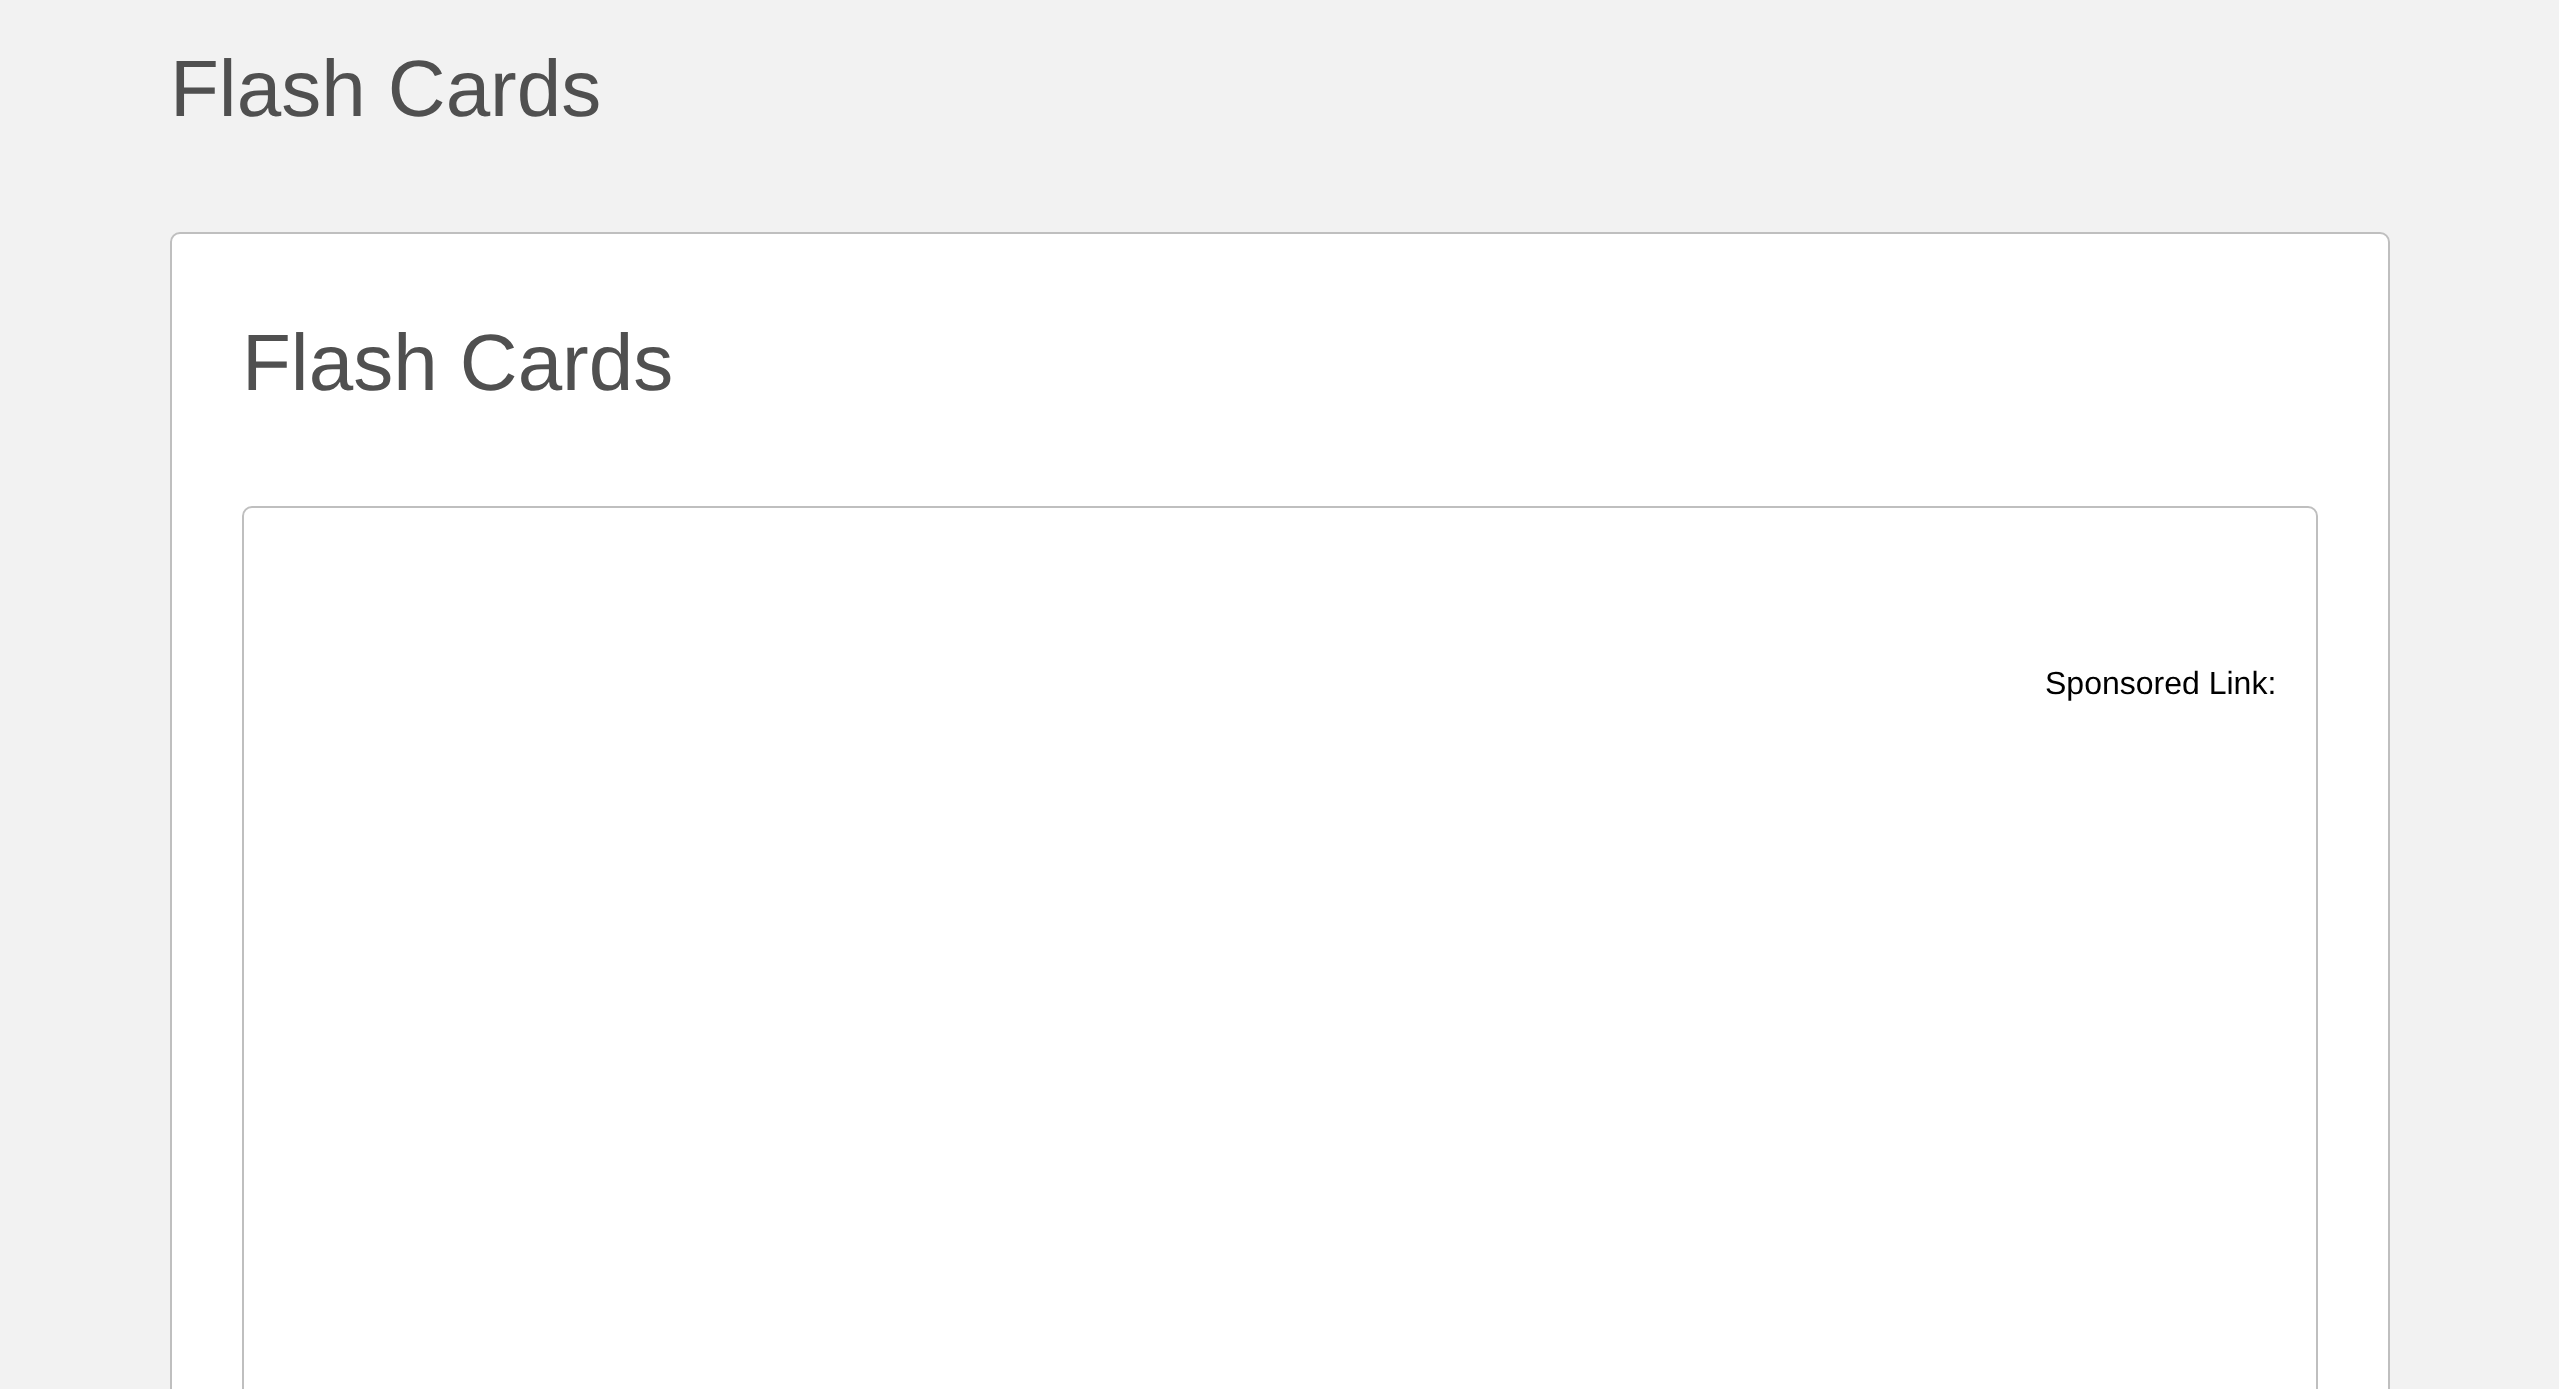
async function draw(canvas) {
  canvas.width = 2559;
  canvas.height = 1389;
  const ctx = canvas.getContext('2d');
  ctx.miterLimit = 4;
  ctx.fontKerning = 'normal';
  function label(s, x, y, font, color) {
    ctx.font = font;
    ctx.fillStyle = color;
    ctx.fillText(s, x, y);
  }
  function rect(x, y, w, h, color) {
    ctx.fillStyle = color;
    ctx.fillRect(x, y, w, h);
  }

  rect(0, 0, 2559, 1389, '#f2f2f2');
  label('Flash Cards', 170, 116, '80px Liberation Sans', '#505050');
  ctx.fillStyle = '#fff';
  ctx.beginPath();
  ctx.roundRect(171, 233, 2218, 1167, 9);
  ctx.fill();
  ctx.strokeStyle = '#bfbfbf';
  ctx.lineWidth = 2;
  ctx.stroke();
  label('Flash Cards', 242, 390, '80px Liberation Sans', '#505050');
  ctx.beginPath();
  ctx.roundRect(243, 507, 2074, 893, 9);
  ctx.stroke();
  label('Sponsored Link:', 2045, 694, '32px Liberation Sans', '#000');
}

draw(document.querySelector('canvas'));
